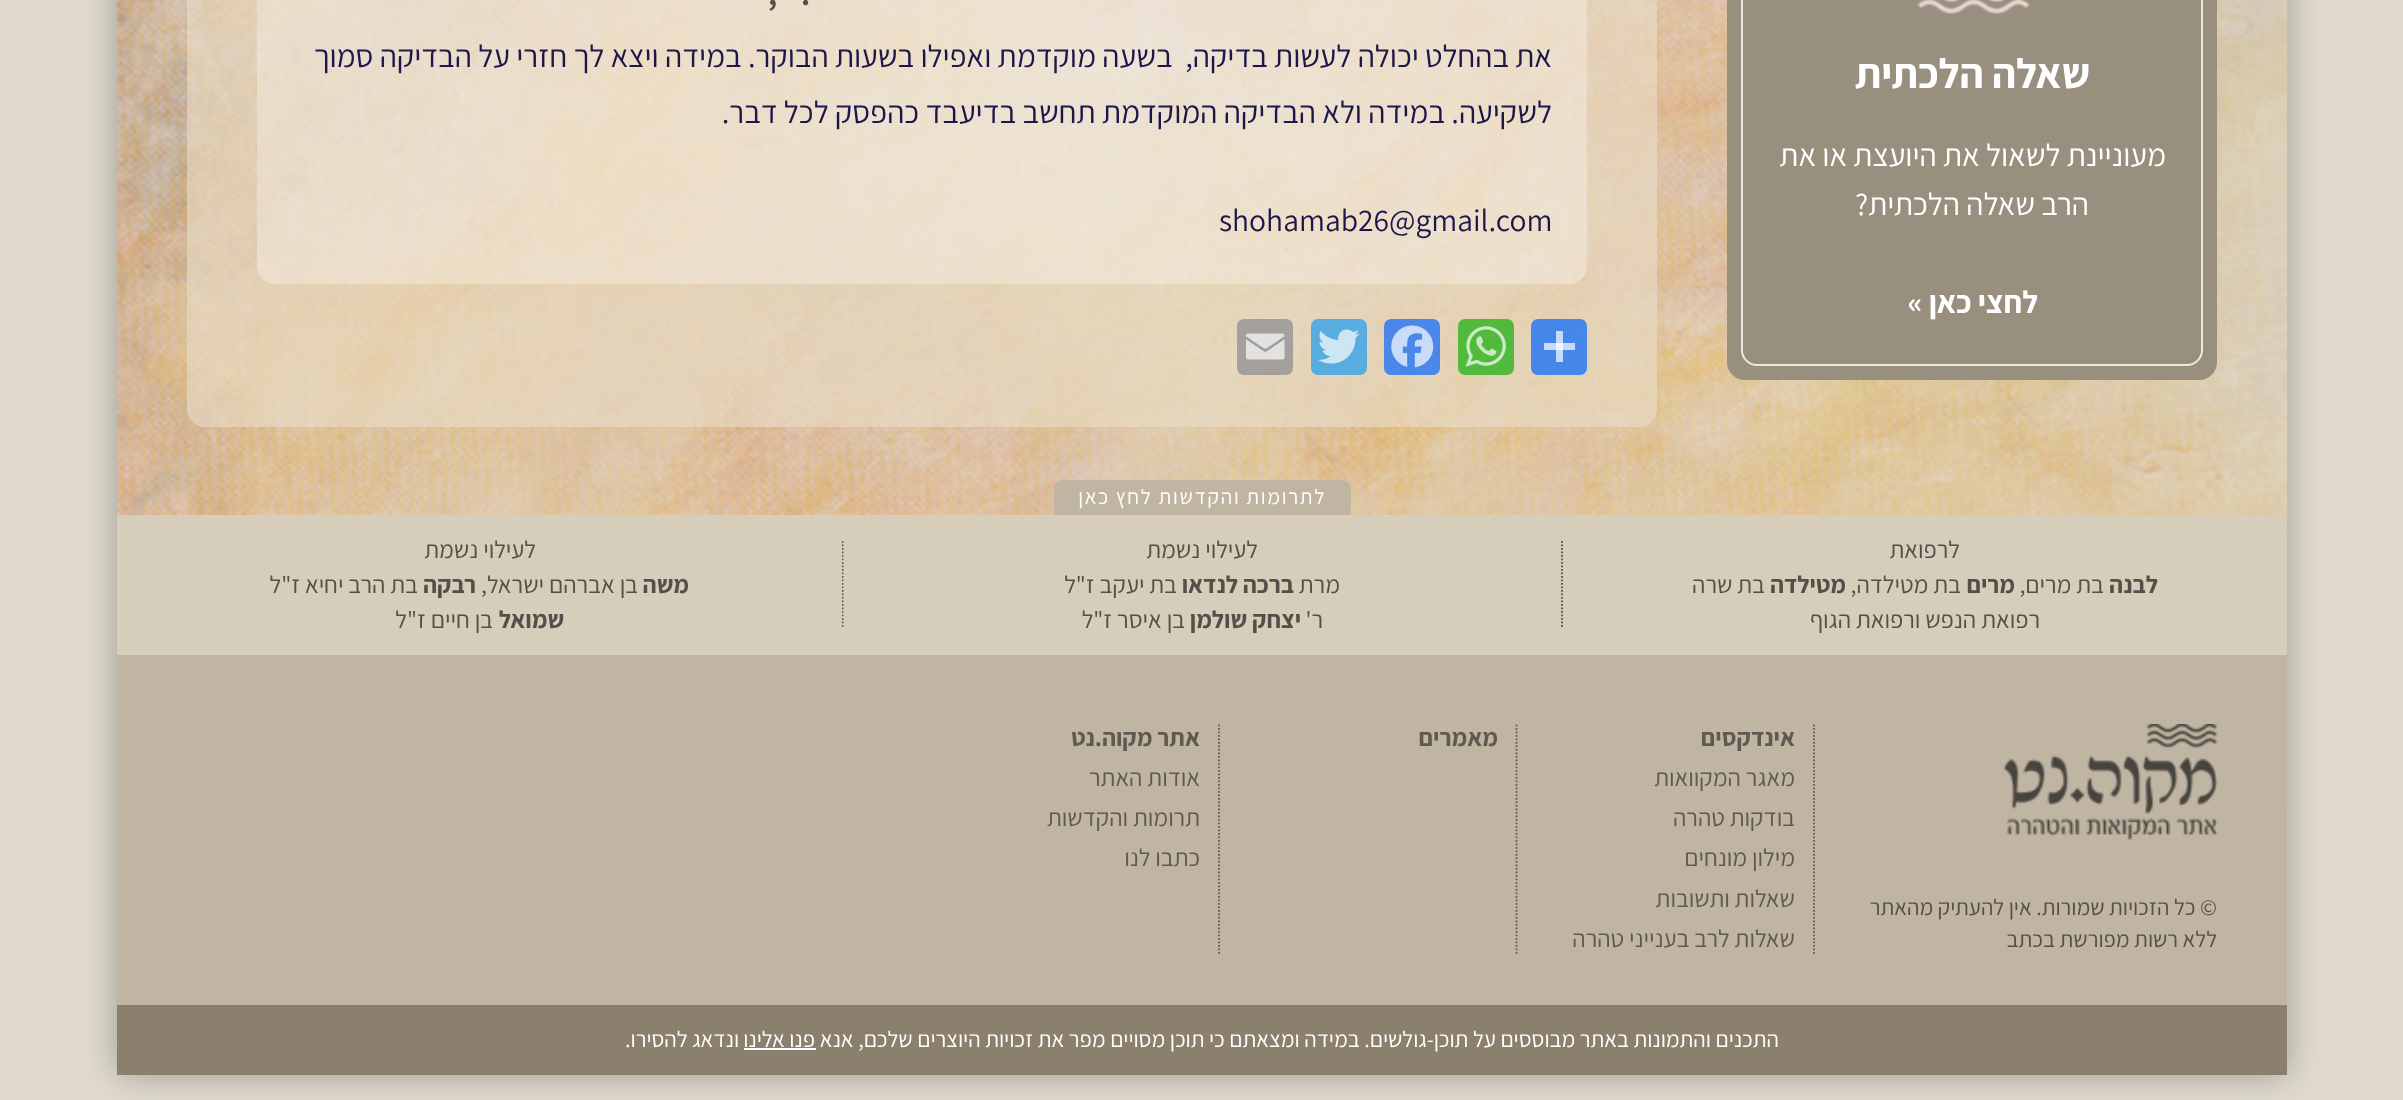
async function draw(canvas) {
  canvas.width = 2403;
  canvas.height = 1100;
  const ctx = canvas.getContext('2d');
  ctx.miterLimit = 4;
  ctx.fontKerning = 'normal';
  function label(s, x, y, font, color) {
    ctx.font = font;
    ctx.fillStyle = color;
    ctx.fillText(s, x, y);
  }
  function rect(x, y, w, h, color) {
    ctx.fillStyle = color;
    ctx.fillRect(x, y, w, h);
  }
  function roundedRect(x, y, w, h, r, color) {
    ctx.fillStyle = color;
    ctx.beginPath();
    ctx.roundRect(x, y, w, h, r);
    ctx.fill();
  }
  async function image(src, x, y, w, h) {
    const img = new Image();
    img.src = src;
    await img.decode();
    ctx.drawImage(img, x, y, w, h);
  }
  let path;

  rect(0, 0, 2403, 1100, '#e1dbcf');
  ctx.fillStyle = '#0000004d';
  ctx.filter = 'blur(17.5px)';
  ctx.beginPath();
  ctx.rect(117, -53, 2170, 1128);
  ctx.fill();
  ctx.filter = 'none';
  await image('assets/img1.png', 117, 0, 2171, 1074);
  roundedRect(1727, -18, 490, 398, 18, '#988f7e');
  ctx.beginPath();
  ctx.roundRect(1742, -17, 460, 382, 15);
  ctx.strokeStyle = '#eae9e5';
  ctx.lineWidth = 2;
  ctx.stroke();
  await image('assets/img2.png', 1916, 0, 114, 14);
  ctx.direction = 'rtl';
  label('שאלה הלכתית', 2090, 88, 'bold 42px Assistant', '#fff');
  label('מעוניינת לשאול את היועצת או את', 2166, 166, '31.5px Assistant', '#fff');
  label('הרב שאלה הלכתית?', 2089, 215, '31.5px Assistant', '#fff');
  label('לחצי כאן »', 2038, 313, 'bold 31.5px Assistant', '#fff');
  roundedRect(187, -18, 1470, 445, 18, '#e9ddc999');
  roundedRect(257, -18, 1330, 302, 18, '#ffffff4d');
  ctx.direction = 'ltr';
  label('.', 801, 5, 'bold 31.5px Assistant', '#534f49');
  label(',', 768, 5, 'bold 31.5px Assistant', '#534f49');
  ctx.direction = 'rtl';
  label('את בהחלט יכולה לעשות בדיקה,  בשעה מוקדמת ואפילו בשעות הבוקר. במידה ויצא לך חזרי על הבדיקה סמוך', 1552, 67, '31.5px Assistant', '#1c1649');
  label('לשקיעה. במידה ולא הבדיקה המוקדמת תחשב בדיעבד כהפסק לכל דבר.', 1552, 123, '31.5px Assistant', '#1c1649');
  ctx.direction = 'ltr';
  label('shohamab26@gmail.com', 1219, 231, '31.5px Assistant', '#1c1649');
  roundedRect(1531, 319, 56, 56, 7, '#0166ffb3');
  rect(1556, 331, 7, 31, '#ffffffb3');
  rect(1544, 343, 31, 7, '#ffffffb3');
  roundedRect(1458, 319, 56, 56, 7, '#12af0ab3');
  await image('assets/img3.png', 1465, 326, 41, 41);
  roundedRect(1384, 319, 56, 56, 7, '#0866ffb3');
  await image('assets/img4.png', 1391, 325, 43, 43);
  roundedRect(1311, 319, 56, 56, 7, '#1d9bf0b3');
  await image('assets/img5.png', 1318, 329, 42, 35);
  roundedRect(1237, 319, 56, 56, 7, '#888990b3');
  await image('assets/img6.png', 1246, 333, 39, 27);
  rect(117, 515, 2170, 140, '#d6cdbb');
  ctx.fillStyle = '#bfb5a2';
  ctx.beginPath();
  ctx.roundRect(1054, 480, 297, 35, [9, 9, 0, 0]);
  ctx.fill();
  ctx.letterSpacing = '1.75px';
  ctx.direction = 'rtl';
  label('לתרומות והקדשות לחץ כאן', 1326, 504, '21px Assistant', '#fff');
  ctx.letterSpacing = '0px';
  label('לרפואת', 1960, 558, '24.5px Assistant', '#534f49');
  label('לבנה', 2158, 593, 'bold 24.5px Assistant', '#534f49');
  label('בת מרים,', 2104, 593, '24.5px Assistant', '#534f49');
  label('מרים', 2015, 593, 'bold 24.5px Assistant', '#534f49');
  label('בת מטילדה,', 1961, 593, '24.5px Assistant', '#534f49');
  label('מטילדה', 1846, 593, 'bold 24.5px Assistant', '#534f49');
  label('בת שרה', 1765, 593, '24.5px Assistant', '#534f49');
  label('רפואת הנפש ורפואת הגוף', 2040, 628, '24.5px Assistant', '#534f49');
  path = new Path2D('M1562 541V628');
  ctx.strokeStyle = '#534f49';
  ctx.lineWidth = 1.8;
  ctx.setLineDash([1.75, 1.75]);
  ctx.stroke(path);
  label('לעילוי נשמת', 1258, 558, '24.5px Assistant', '#534f49');
  path = new Path2D('M842.5 541V628');
  ctx.stroke(path);
  label('מרת', 1340, 593, '24.5px Assistant', '#534f49');
  label('ברכה לנדאו', 1294, 593, 'bold 24.5px Assistant', '#534f49');
  label('בת יעקב ז"ל', 1177, 593, '24.5px Assistant', '#534f49');
  label('ר\'', 1323, 628, '24.5px Assistant', '#534f49');
  label('יצחק שולמן', 1301, 628, 'bold 24.5px Assistant', '#534f49');
  label('בן איסר ז"ל', 1185, 628, '24.5px Assistant', '#534f49');
  rect(841, 541, 1, 86, '#d6cdbb');
  label('לעילוי נשמת', 536, 558, '24.5px Assistant', '#534f49');
  label('משה', 689, 593, 'bold 24.5px Assistant', '#534f49');
  label('בן אברהם ישראל,', 638, 593, '24.5px Assistant', '#534f49');
  label('רבקה', 476, 593, 'bold 24.5px Assistant', '#534f49');
  label('בת הרב יחיא ז"ל', 418, 593, '24.5px Assistant', '#534f49');
  label('שמואל', 564, 628, 'bold 24.5px Assistant', '#534f49');
  label('בן חיים ז"ל', 493, 628, '24.5px Assistant', '#534f49');
  rect(117, 655, 2170, 350, '#bfb5a2');
  await image('assets/img7.png', 2003, 724, 215, 116);
  label('© כל הזכויות שמורות. אין להעתיק מהאתר', 2217, 915, '22.75px Assistant', '#534f49');
  label('ללא רשות מפורשת בכתב', 2217, 947, '22.75px Assistant', '#534f49');
  path = new Path2D('M1814 724.5V955.5');
  ctx.strokeStyle = '#5f5a51';
  ctx.stroke(path);
  label('אינדקסים', 1795, 746, 'bold 24.5px Assistant', '#5f5a51');
  label('מאגר המקוואות', 1795, 786, '24.5px Assistant', '#5f5a51');
  label('בודקות טהרה', 1795, 826, '24.5px Assistant', '#5f5a51');
  label('מילון מונחים', 1795, 866, '24.5px Assistant', '#5f5a51');
  label('שאלות ותשובות', 1795, 907, '24.5px Assistant', '#5f5a51');
  label('שאלות לרב בענייני טהרה', 1795, 947, '24.5px Assistant', '#5f5a51');
  path = new Path2D('M1516.5 724.5V955.5');
  ctx.stroke(path);
  label('מאמרים', 1498, 746, 'bold 24.5px Assistant', '#5f5a51');
  path = new Path2D('M1219 724.5V955.5');
  ctx.stroke(path);
  label('אתר מקוה.נט', 1200, 746, 'bold 24.5px Assistant', '#5f5a51');
  label('אודות האתר', 1200, 786, '24.5px Assistant', '#5f5a51');
  label('תרומות והקדשות', 1200, 826, '24.5px Assistant', '#5f5a51');
  label('כתבו לנו', 1200, 866, '24.5px Assistant', '#5f5a51');
  rect(117, 1005, 2170, 70, '#8a806d');
  label('התכנים והתמונות באתר מבוססים על תוכן-גולשים. במידה ומצאתם כי תוכן מסויים מפר את זכויות היוצרים שלכם, אנא', 1779, 1047, '22.75px Assistant', '#fff');
  label('פנו אלינו', 815, 1047, '22.75px Assistant', '#fff');
  rect(744, 1048, 72, 2, '#fff');
  label('ונדאג להסירו.', 739, 1047, '22.75px Assistant', '#fff');
}

draw(document.querySelector('canvas'));
